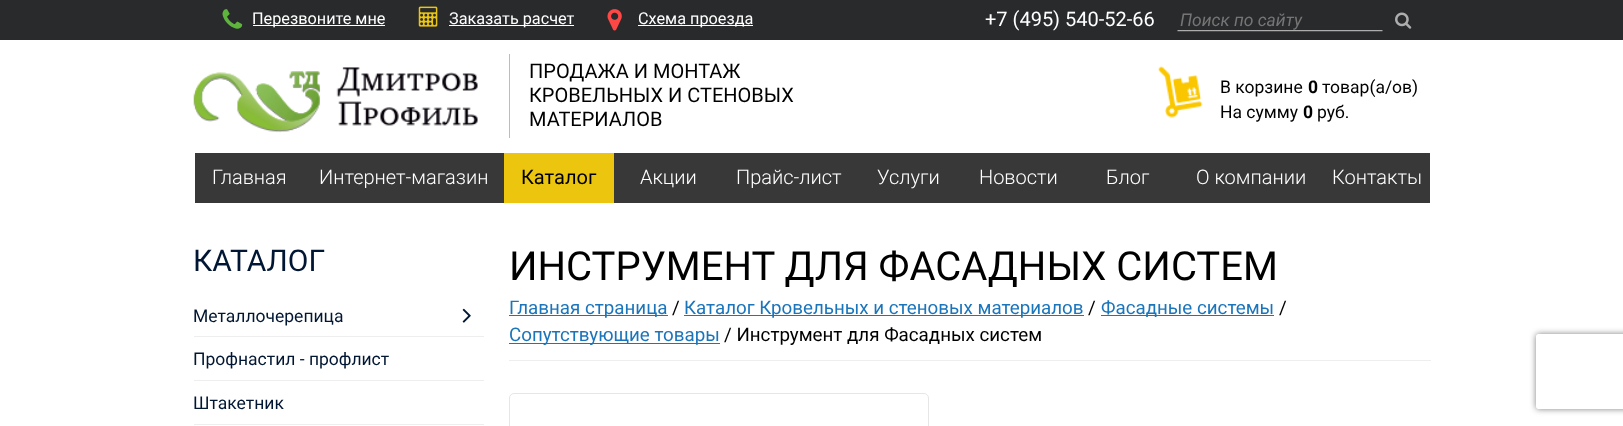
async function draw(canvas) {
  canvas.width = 1623;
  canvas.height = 426;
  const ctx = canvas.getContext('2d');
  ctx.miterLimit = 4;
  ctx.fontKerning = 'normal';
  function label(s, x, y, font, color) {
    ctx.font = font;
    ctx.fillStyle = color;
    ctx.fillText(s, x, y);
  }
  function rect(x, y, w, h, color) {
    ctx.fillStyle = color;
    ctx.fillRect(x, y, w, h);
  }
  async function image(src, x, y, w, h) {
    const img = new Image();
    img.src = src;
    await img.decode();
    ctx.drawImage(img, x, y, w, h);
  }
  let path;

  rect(0, 0, 1623, 426, '#fff');
  rect(0, 0, 1623, 40, '#282a2c');
  await image('assets/img1.png', 222, 9, 21, 20);
  rect(253, 25, 132, 1, '#fff');
  label('Перезвоните мне', 252, 24, '16.25px Roboto', '#fff');
  await image('assets/img2.png', 418, 6, 20, 21);
  rect(449, 25, 125, 1, '#fff');
  label('Заказать расчет', 449, 24, '16.25px Roboto', '#fff');
  await image('assets/img3.png', 607, 9, 15, 22);
  rect(638, 25, 115, 1, '#fff');
  label('Cхема проезда', 638, 24, '16.25px Roboto', '#fff');
  label('+7 (495) 540-52-66', 985, 26, '20px Roboto', '#fff');
  await image('assets/img4.png', 1177, 30, 206, 2);
  label('Поиск по сайту', 1180, 26, 'italic 17.5px Roboto', '#757575');
  await image('assets/img5.png', 1395, 12, 17, 17);
  await image('assets/img6.png', 193, 67, 285, 66);
  rect(509, 54, 1, 84, '#ecc50f');
  label('ПРОДАЖА И МОНТАЖ', 529, 78, '20px Roboto', '#000');
  label('КРОВЕЛЬНЫХ И СТЕНОВЫХ', 529, 102, '20px Roboto', '#000');
  label('МАТЕРИАЛОВ', 529, 126, '20px Roboto', '#000');
  await image('assets/img7.png', 1158, 66, 45, 52);
  label('В корзине', 1220, 93, '17.5px Roboto', '#000');
  label('0', 1308, 93, 'bold 17.5px Roboto', '#000');
  label('товар(a/ов)', 1322, 93, '17.5px Roboto', '#000');
  label('На сумму', 1220, 118, '17.5px Roboto', '#000');
  label('0', 1303, 118, 'bold 17.5px Roboto', '#000');
  label('руб.', 1317, 118, '17.5px Roboto', '#000');
  rect(195, 153, 309, 50, '#383838');
  label('Главная', 212, 184, '300 20px Roboto', '#fff');
  label('Интернет-магазин', 319, 184, '300 20px Roboto', '#fff');
  rect(504, 153, 110, 50, '#ecc50f');
  label('Каталог', 521, 184, '20px Roboto', '#000');
  rect(614, 153, 816, 50, '#383838');
  label('Акции', 640, 184, '300 20px Roboto', '#fff');
  label('Прайс-лист', 736, 184, '300 20px Roboto', '#fff');
  label('Услуги', 877, 184, '300 20px Roboto', '#fff');
  label('Новости', 979, 184, '300 20px Roboto', '#fff');
  label('Блог', 1106, 184, '300 20px Roboto', '#fff');
  label('О компании', 1196, 184, '300 20px Roboto', '#fff');
  label('Контакты', 1332, 184, '300 20px Roboto', '#fff');
  label('КАТАЛОГ', 193, 271, '30px Roboto', '#001632');
  rect(194, 336, 290, 1, '#eee');
  label('Металлочерепица', 193, 322, '17.5px Roboto', '#001632');
  await image('assets/img8.png', 462, 308, 9, 15);
  rect(194, 380, 290, 1, '#eee');
  label('Профнастил - профлист', 193, 365, '17.5px Roboto', '#001632');
  rect(194, 424, 290, 1, '#eee');
  label('Штакетник', 193, 409, '17.5px Roboto', '#001632');
  rect(509, 360, 922, 1, '#eee');
  label('ИНСТРУМЕНТ ДЛЯ ФАСАДНЫХ СИСТЕМ', 509, 280, '40px Roboto', '#000');
  rect(509, 315, 159, 1, '#1b75bb');
  label('Главная страница', 509, 314, '18.75px Roboto', '#1b75bb');
  label('/', 672, 314, '18.75px Roboto', '#000');
  rect(684, 315, 400, 1, '#1b75bb');
  label('Каталог Кровельных и стеновых материалов', 684, 314, '18.75px Roboto', '#1b75bb');
  label('/', 1088, 314, '18.75px Roboto', '#000');
  rect(1101, 315, 173, 1, '#1b75bb');
  label('Фасадные системы', 1101, 314, '18.75px Roboto', '#1b75bb');
  label('/', 1279, 314, '18.75px Roboto', '#000');
  rect(509, 343, 211, 1, '#1b75bb');
  label('Сопутствующие товары', 509, 341, '18.75px Roboto', '#1b75bb');
  label('/ Инструмент для Фасадных систем', 724, 341, '18.75px Roboto', '#000');
  ctx.beginPath();
  ctx.roundRect(509.5, 393.5, 419, 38, 4.5);
  ctx.strokeStyle = '#e6e6e6';
  ctx.stroke();
  ctx.save();
  path = new Path2D('M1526 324H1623V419H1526ZM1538.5 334H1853.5C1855 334 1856 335 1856 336.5V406.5C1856 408 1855 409 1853.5 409H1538.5C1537 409 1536 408 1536 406.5V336.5C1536 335 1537 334 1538.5 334Z');
  ctx.clip(path, 'evenodd');
  ctx.fillStyle = '#808080';
  ctx.filter = 'blur(3px)';
  ctx.beginPath();
  ctx.roundRect(1536, 334, 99, 75, 2.5);
  ctx.fill();
  ctx.filter = 'none';
  ctx.restore();
}

draw(document.querySelector('canvas'));
